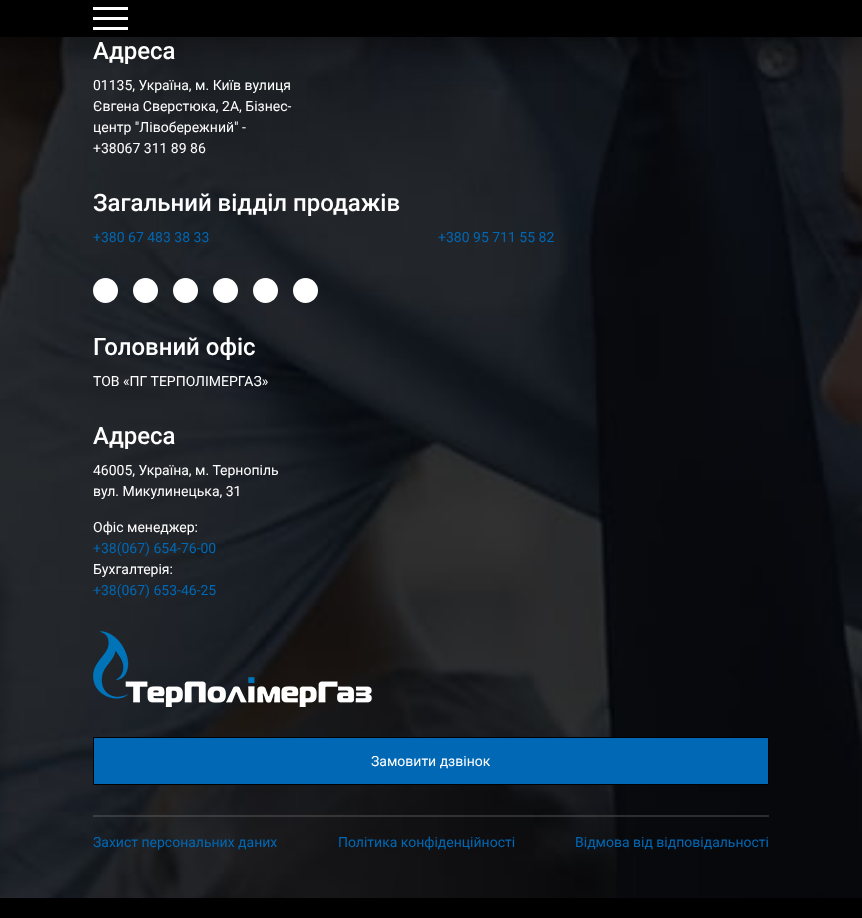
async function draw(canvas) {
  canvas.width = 862;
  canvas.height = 918;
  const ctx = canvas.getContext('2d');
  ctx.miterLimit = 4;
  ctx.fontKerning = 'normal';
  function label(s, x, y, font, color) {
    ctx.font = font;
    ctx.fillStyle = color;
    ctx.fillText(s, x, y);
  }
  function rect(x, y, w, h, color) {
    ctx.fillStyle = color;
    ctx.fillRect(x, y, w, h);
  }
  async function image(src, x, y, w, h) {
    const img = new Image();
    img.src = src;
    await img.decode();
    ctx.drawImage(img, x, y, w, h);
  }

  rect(0, 0, 862, 918, '#fff');
  await image('assets/img1.png', 0, 37, 862, 861);
  ctx.fillStyle = '#00000066';
  ctx.filter = 'blur(15px)';
  ctx.beginPath();
  ctx.rect(-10, -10, 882, 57);
  ctx.fill();
  ctx.filter = 'none';
  rect(0, 0, 862, 37, '#000');
  rect(93, 7, 35, 3, '#fff');
  rect(93, 17, 35, 3, '#fff');
  rect(93, 27, 35, 3, '#fff');
  label('Адреса', 93, 59, '500 24px Roboto', '#fff');
  label('01135, Україна, м. Київ вулиця', 93, 90, '14px Roboto', '#fff');
  label('Євгена Сверстюка, 2А, Бізнес-', 93, 111, '14px Roboto', '#fff');
  label('центр "Лівобережний" -', 93, 132, '14px Roboto', '#fff');
  label('+38067 311 89 86', 93, 153, '14px Roboto', '#fff');
  label('Загальний відділ продажів', 93, 211, '500 24px Roboto', '#fff');
  label('+380 67 483 38 33', 93, 242, '14px Roboto', '#0068b4');
  label('+380 95 711 55 82', 438, 242, '14px Roboto', '#0068b4');
  ctx.fillStyle = '#fff';
  ctx.beginPath();
  ctx.arc(105.5, 290.5, 12.5, 0, 2 * Math.PI);
  ctx.fill();
  ctx.beginPath();
  ctx.arc(145.5, 290.5, 12.5, 0, 2 * Math.PI);
  ctx.fill();
  ctx.beginPath();
  ctx.arc(185.5, 290.5, 12.5, 0, 2 * Math.PI);
  ctx.fill();
  ctx.beginPath();
  ctx.arc(225.5, 290.5, 12.5, 0, 2 * Math.PI);
  ctx.fill();
  ctx.beginPath();
  ctx.arc(265.5, 290.5, 12.5, 0, 2 * Math.PI);
  ctx.fill();
  ctx.beginPath();
  ctx.arc(305.5, 290.5, 12.5, 0, 2 * Math.PI);
  ctx.fill();
  label('Головний офіс', 93, 355, '500 24px Roboto', '#fff');
  label('ТОВ «ПГ ТЕРПОЛІМЕРГАЗ»', 93, 386, '14px Roboto', '#fff');
  label('Адреса', 93, 444, '500 24px Roboto', '#fff');
  label('46005, Україна, м. Тернопіль', 93, 475, '14px Roboto', '#fff');
  label('вул. Микулинецька, 31', 93, 496, '14px Roboto', '#fff');
  label('Офіс менеджер:', 93, 532, '14px Roboto', '#fff');
  label('+38(067) 654-76-00', 93, 553, '14px Roboto', '#0068b4');
  label('Бухгалтерія:', 93, 574, '14px Roboto', '#fff');
  label('+38(067) 653-46-25', 93, 595, '14px Roboto', '#0068b4');
  await image('assets/img2.png', 93, 631, 279, 76);
  ctx.beginPath();
  ctx.rect(93.5, 737.5, 675, 47);
  ctx.fill();
  ctx.strokeStyle = '#000';
  ctx.stroke();
  label('Замовити дзвінок', 371, 766, '14px Roboto', '#fff');
  rect(93, 815, 676, 2, '#8080804d');
  label('Захист персональних даних', 93, 847, '14px Roboto', '#0068b4');
  label('Політика конфіденційності', 338, 847, '14px Roboto', '#0068b4');
  label('Відмова від відповідальності', 575, 847, '14px Roboto', '#0068b4');
  rect(0, 898, 862, 20, '#000');
}

draw(document.querySelector('canvas'));
